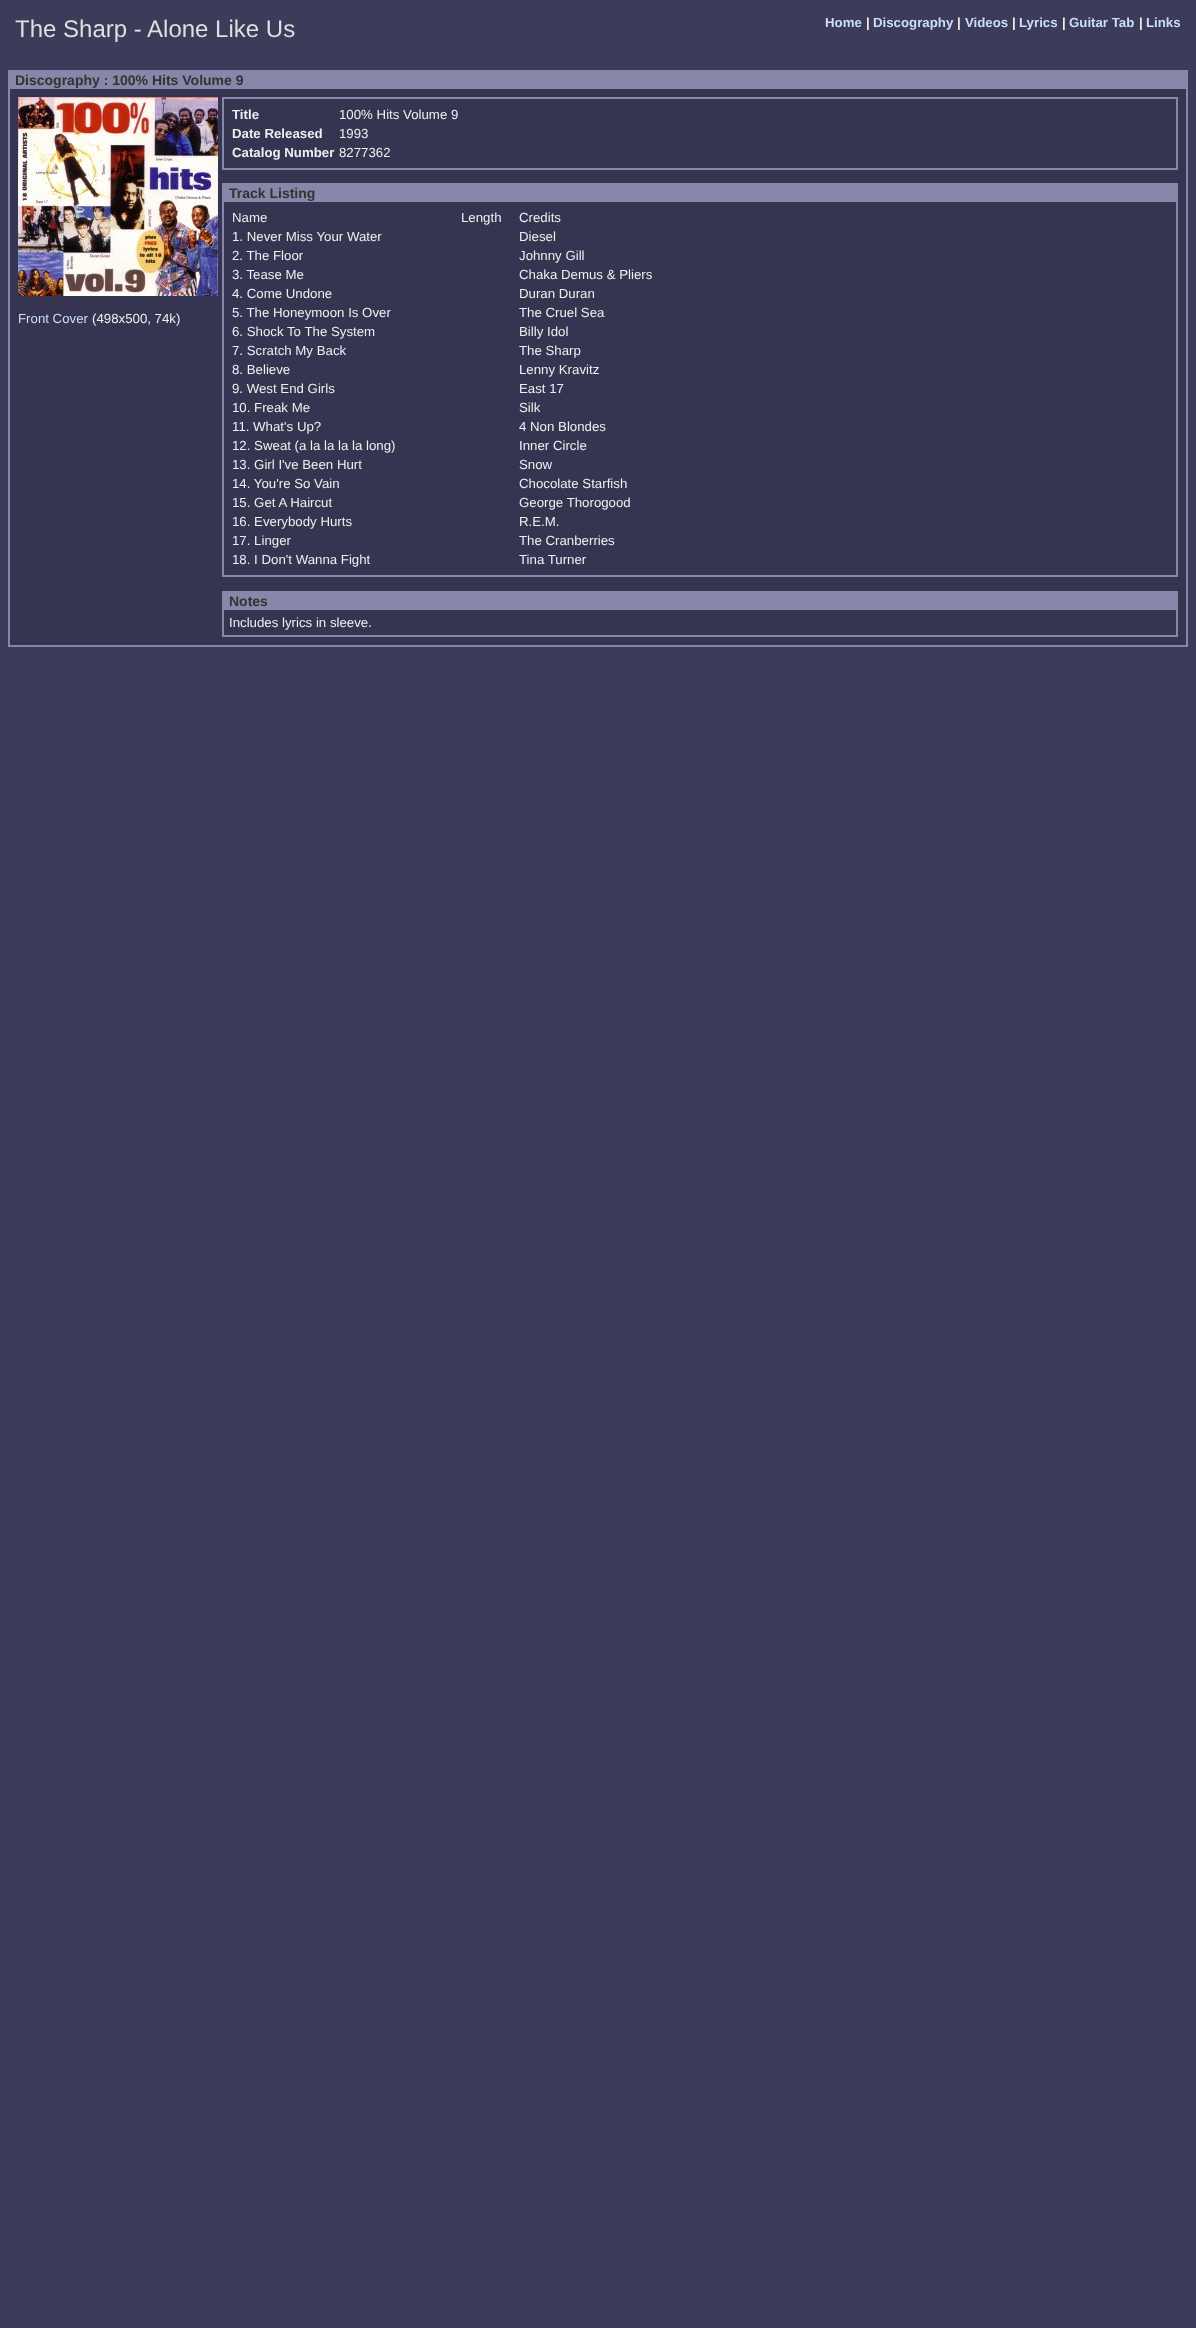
async function draw(canvas) {
  canvas.width = 1196;
  canvas.height = 2328;
  const ctx = canvas.getContext('2d');
  ctx.miterLimit = 4;
  ctx.fontKerning = 'normal';
  function label(s, x, y, font, color) {
    ctx.font = font;
    ctx.fillStyle = color;
    ctx.fillText(s, x, y);
  }
  function rect(x, y, w, h, color) {
    ctx.fillStyle = color;
    ctx.fillRect(x, y, w, h);
  }
  async function image(src, x, y, w, h) {
    const img = new Image();
    img.src = src;
    await img.decode();
    ctx.drawImage(img, x, y, w, h);
  }

  rect(0, 0, 1196, 2328, '#3c3c5a');
  label('The Sharp - Alone Like Us', 15, 37, '24px Liberation Sans', '#dfdfdf');
  label('Home', 825, 27, 'bold 13.25px Liberation Sans', '#cdf');
  label('|', 866, 27, 'bold 13.25px Liberation Sans', '#efefef');
  label('Discography', 873, 27, 'bold 13.25px Liberation Sans', '#cdf');
  label('|', 957, 27, 'bold 13.25px Liberation Sans', '#efefef');
  label('Videos', 965, 27, 'bold 13.25px Liberation Sans', '#cdf');
  label('|', 1012, 27, 'bold 13.25px Liberation Sans', '#efefef');
  label('Lyrics', 1019, 27, 'bold 13.25px Liberation Sans', '#cdf');
  label('|', 1062, 27, 'bold 13.25px Liberation Sans', '#efefef');
  label('Guitar Tab', 1069, 27, 'bold 13.25px Liberation Sans', '#cdf');
  label('|', 1139, 27, 'bold 13.25px Liberation Sans', '#efefef');
  label('Links', 1146, 27, 'bold 13.25px Liberation Sans', '#cdf');
  rect(10, 89, 1176, 556, '#353551');
  ctx.strokeStyle = '#8787a9';
  ctx.lineWidth = 2;
  ctx.strokeRect(9, 71, 1178, 575);
  rect(10, 72, 1176, 17, '#8787a9');
  label('Discography : 100% Hits Volume 9', 15, 85, 'bold 14px Liberation Sans', '#333');
  await image('assets/img1.png', 18, 97, 200, 199);
  label('Front Cover', 18, 323, '13.25px Liberation Sans', '#cdf');
  label('(498x500, 74k)', 92, 323, '13.25px Liberation Sans', '#efefef');
  ctx.strokeRect(223, 98, 954, 71);
  label('Title', 232, 119, 'bold 13.25px Liberation Sans', '#efefef');
  label('100% Hits Volume 9', 339, 119, '13.25px Liberation Sans', '#efefef');
  label('Date Released', 232, 138, 'bold 13.25px Liberation Sans', '#efefef');
  label('1993', 339, 138, '13.25px Liberation Sans', '#efefef');
  label('Catalog Number', 232, 157, 'bold 13.25px Liberation Sans', '#efefef');
  label('8277362', 339, 157, '13.25px Liberation Sans', '#efefef');
  ctx.strokeRect(223, 184, 954, 392);
  rect(224, 185, 952, 17, '#8787a9');
  label('Track Listing', 229, 198, 'bold 14px Liberation Sans', '#333');
  label('Name', 232, 222, '13.25px Liberation Sans', '#efefef');
  label('Length', 461, 222, '13.25px Liberation Sans', '#efefef');
  label('Credits', 519, 222, '13.25px Liberation Sans', '#efefef');
  label('1. Never Miss Your Water', 232, 241, '13.25px Liberation Sans', '#efefef');
  label('Diesel', 519, 241, '13.25px Liberation Sans', '#efefef');
  label('2. The Floor', 232, 260, '13.25px Liberation Sans', '#efefef');
  label('Johnny Gill', 519, 260, '13.25px Liberation Sans', '#efefef');
  label('3. Tease Me', 232, 279, '13.25px Liberation Sans', '#efefef');
  label('Chaka Demus & Pliers', 519, 279, '13.25px Liberation Sans', '#efefef');
  label('4. Come Undone', 232, 298, '13.25px Liberation Sans', '#efefef');
  label('Duran Duran', 519, 298, '13.25px Liberation Sans', '#efefef');
  label('5. The Honeymoon Is Over', 232, 317, '13.25px Liberation Sans', '#efefef');
  label('The Cruel Sea', 519, 317, '13.25px Liberation Sans', '#efefef');
  label('6. Shock To The System', 232, 336, '13.25px Liberation Sans', '#efefef');
  label('Billy Idol', 519, 336, '13.25px Liberation Sans', '#efefef');
  label('7. Scratch My Back', 232, 355, '13.25px Liberation Sans', '#efefef');
  label('The Sharp', 519, 355, '13.25px Liberation Sans', '#efefef');
  label('8. Believe', 232, 374, '13.25px Liberation Sans', '#efefef');
  label('Lenny Kravitz', 519, 374, '13.25px Liberation Sans', '#efefef');
  label('9. West End Girls', 232, 393, '13.25px Liberation Sans', '#efefef');
  label('East 17', 519, 393, '13.25px Liberation Sans', '#efefef');
  label('10. Freak Me', 232, 412, '13.25px Liberation Sans', '#efefef');
  label('Silk', 519, 412, '13.25px Liberation Sans', '#efefef');
  label('11. What\'s Up?', 232, 431, '13.25px Liberation Sans', '#efefef');
  label('4 Non Blondes', 519, 431, '13.25px Liberation Sans', '#efefef');
  label('12. Sweat (a la la la la long)', 232, 450, '13.25px Liberation Sans', '#efefef');
  label('Inner Circle', 519, 450, '13.25px Liberation Sans', '#efefef');
  label('13. Girl I\'ve Been Hurt', 232, 469, '13.25px Liberation Sans', '#efefef');
  label('Snow', 519, 469, '13.25px Liberation Sans', '#efefef');
  label('14. You\'re So Vain', 232, 488, '13.25px Liberation Sans', '#efefef');
  label('Chocolate Starfish', 519, 488, '13.25px Liberation Sans', '#efefef');
  label('15. Get A Haircut', 232, 507, '13.25px Liberation Sans', '#efefef');
  label('George Thorogood', 519, 507, '13.25px Liberation Sans', '#efefef');
  label('16. Everybody Hurts', 232, 526, '13.25px Liberation Sans', '#efefef');
  label('R.E.M.', 519, 526, '13.25px Liberation Sans', '#efefef');
  label('17. Linger', 232, 545, '13.25px Liberation Sans', '#efefef');
  label('The Cranberries', 519, 545, '13.25px Liberation Sans', '#efefef');
  label('18. I Don\'t Wanna Fight', 232, 564, '13.25px Liberation Sans', '#efefef');
  label('Tina Turner', 519, 564, '13.25px Liberation Sans', '#efefef');
  ctx.strokeRect(223, 592, 954, 44);
  rect(224, 593, 952, 17, '#8787a9');
  label('Notes', 229, 606, 'bold 14px Liberation Sans', '#333');
  label('Includes lyrics in sleeve.', 229, 627, '13.25px Liberation Sans', '#efefef');
}

draw(document.querySelector('canvas'));
